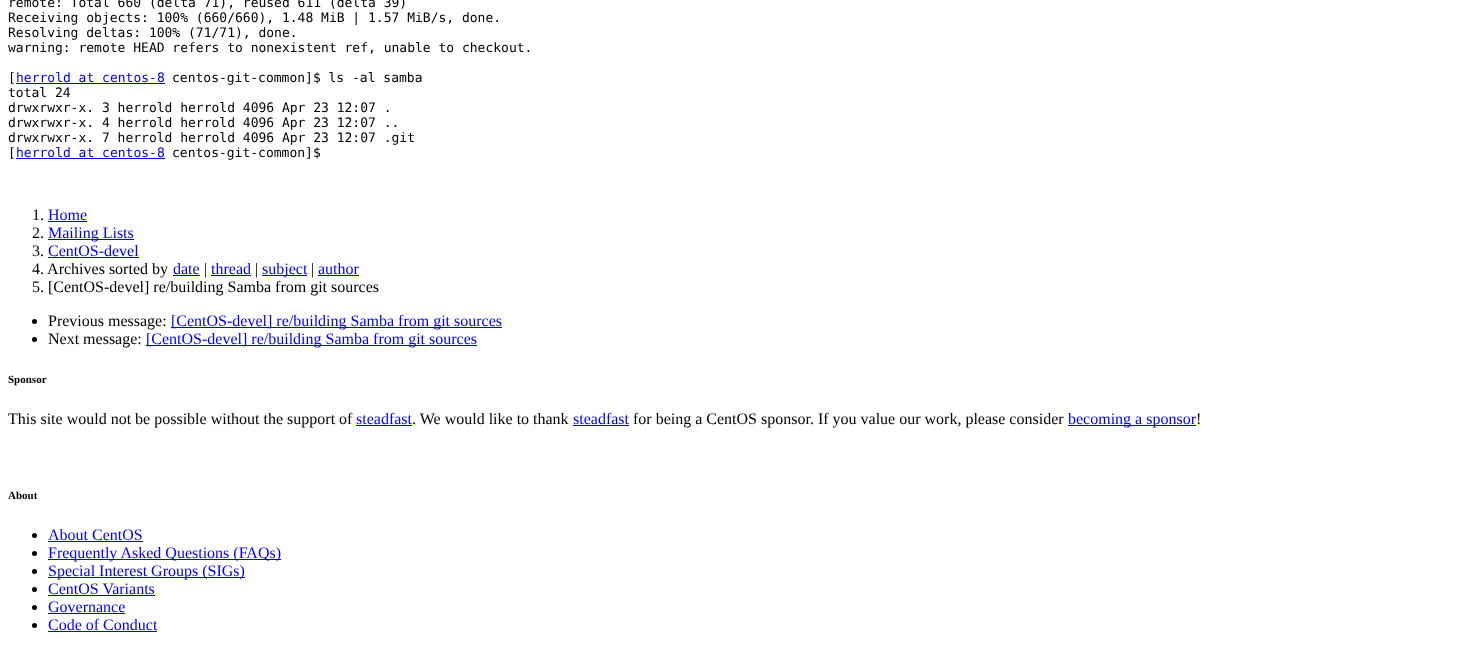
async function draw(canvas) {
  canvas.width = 1484;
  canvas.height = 654;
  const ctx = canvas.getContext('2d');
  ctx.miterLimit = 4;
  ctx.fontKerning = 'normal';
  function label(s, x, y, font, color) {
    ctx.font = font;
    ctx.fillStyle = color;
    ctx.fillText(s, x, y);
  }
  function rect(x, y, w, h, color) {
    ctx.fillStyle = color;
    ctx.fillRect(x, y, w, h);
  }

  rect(0, 0, 1484, 654, '#fff');
  label('remote: Total 660 (delta 71), reused 611 (delta 39)', 8, 7, '13px DejaVu Sans Mono', '#000');
  label('Receiving objects: 100% (660/660), 1.48 MiB | 1.57 MiB/s, done.', 8, 22, '13px DejaVu Sans Mono', '#000');
  label('Resolving deltas: 100% (71/71), done.', 8, 37, '13px DejaVu Sans Mono', '#000');
  label('warning: remote HEAD refers to nonexistent ref, unable to checkout.', 8, 52, '13px DejaVu Sans Mono', '#000');
  label('[', 8, 82, '13px DejaVu Sans Mono', '#000');
  label('herrold at centos-8', 16, 82, '13px DejaVu Sans Mono', '#00e');
  rect(16, 83, 149, 1, '#00e');
  label('centos-git-common]$ ls -al samba', 172, 82, '13px DejaVu Sans Mono', '#000');
  label('total 24', 8, 97, '13px DejaVu Sans Mono', '#000');
  label('drwxrwxr-x. 3 herrold herrold 4096 Apr 23 12:07 .', 8, 112, '13px DejaVu Sans Mono', '#000');
  label('drwxrwxr-x. 4 herrold herrold 4096 Apr 23 12:07 ..', 8, 127, '13px DejaVu Sans Mono', '#000');
  label('drwxrwxr-x. 7 herrold herrold 4096 Apr 23 12:07 .git', 8, 142, '13px DejaVu Sans Mono', '#000');
  label('[', 8, 157, '13px DejaVu Sans Mono', '#000');
  label('herrold at centos-8', 16, 157, '13px DejaVu Sans Mono', '#00e');
  rect(16, 158, 149, 1, '#00e');
  label('centos-git-common]$', 172, 157, '13px DejaVu Sans Mono', '#000');
  label('1.', 32, 220, '16px Liberation Serif', '#000');
  label('Home', 48, 220, '16px Liberation Serif', '#00e');
  rect(48, 221, 39, 1, '#00e');
  label('2.', 32, 238, '16px Liberation Serif', '#000');
  rect(48, 239, 86, 1, '#00e');
  label('Mailing Lists', 48, 238, '16px Liberation Serif', '#00e');
  label('3.', 32, 256, '16px Liberation Serif', '#000');
  label('CentOS-devel', 48, 256, '16px Liberation Serif', '#00e');
  rect(48, 257, 91, 1, '#00e');
  label('4. Archives sorted by', 32, 274, '16px Liberation Serif', '#000');
  label('date', 173, 274, '16px Liberation Serif', '#00e');
  rect(173, 275, 27, 1, '#00e');
  label('|', 204, 274, '16px Liberation Serif', '#000');
  label('thread', 211, 274, '16px Liberation Serif', '#00e');
  rect(211, 275, 40, 1, '#00e');
  label('|', 255, 274, '16px Liberation Serif', '#000');
  rect(262, 275, 45, 1, '#00e');
  label('subject', 262, 274, '16px Liberation Serif', '#00e');
  label('|', 311, 274, '16px Liberation Serif', '#000');
  label('author', 318, 274, '16px Liberation Serif', '#00e');
  rect(318, 275, 41, 1, '#00e');
  label('5. [CentOS-devel] re/building Samba from git sources', 32, 292, '16px Liberation Serif', '#000');
  ctx.beginPath();
  ctx.arc(34.5, 321.5, 2.5, 0, 2 * Math.PI);
  ctx.fill();
  label('Previous message:', 48, 326, '16px Liberation Serif', '#000');
  rect(171, 327, 331, 1, '#00e');
  label('[CentOS-devel] re/building Samba from git sources', 171, 326, '16px Liberation Serif', '#00e');
  ctx.fillStyle = '#000';
  ctx.beginPath();
  ctx.arc(34.5, 339.5, 2.5, 0, 2 * Math.PI);
  ctx.fill();
  label('Next message:', 48, 344, '16px Liberation Serif', '#000');
  rect(146, 345, 331, 1, '#00e');
  label('[CentOS-devel] re/building Samba from git sources', 146, 344, '16px Liberation Serif', '#00e');
  label('Sponsor', 8, 383, 'bold 11px Liberation Serif', '#000');
  label('This site would not be possible without the support of', 8, 424, '16px Liberation Serif', '#000');
  label('steadfast', 356, 424, '16px Liberation Serif', '#00e');
  rect(356, 425, 56, 1, '#00e');
  label('. We would like to thank', 412, 424, '16px Liberation Serif', '#000');
  label('steadfast', 573, 424, '16px Liberation Serif', '#00e');
  rect(573, 425, 56, 1, '#00e');
  label('for being a CentOS sponsor. If you value our work, please consider', 633, 424, '16px Liberation Serif', '#000');
  rect(1068, 425, 128, 1, '#00e');
  label('becoming a sponsor', 1068, 424, '16px Liberation Serif', '#00e');
  label('!', 1196, 424, '16px Liberation Serif', '#000');
  label('About', 8, 499, 'bold 11px Liberation Serif', '#000');
  ctx.beginPath();
  ctx.arc(34.5, 535.5, 2.5, 0, 2 * Math.PI);
  ctx.fill();
  label('About CentOS', 48, 540, '16px Liberation Serif', '#00e');
  rect(48, 541, 95, 1, '#00e');
  ctx.fillStyle = '#000';
  ctx.beginPath();
  ctx.arc(34.5, 553.5, 2.5, 0, 2 * Math.PI);
  ctx.fill();
  rect(48, 559, 233, 1, '#00e');
  label('Frequently Asked Questions (FAQs)', 48, 558, '16px Liberation Serif', '#00e');
  ctx.fillStyle = '#000';
  ctx.beginPath();
  ctx.arc(34.5, 571.5, 2.5, 0, 2 * Math.PI);
  ctx.fill();
  rect(48, 577, 197, 1, '#00e');
  label('Special Interest Groups (SIGs)', 48, 576, '16px Liberation Serif', '#00e');
  ctx.fillStyle = '#000';
  ctx.beginPath();
  ctx.arc(34.5, 589.5, 2.5, 0, 2 * Math.PI);
  ctx.fill();
  label('CentOS Variants', 48, 594, '16px Liberation Serif', '#00e');
  rect(48, 595, 107, 1, '#00e');
  ctx.fillStyle = '#000';
  ctx.beginPath();
  ctx.arc(34.5, 607.5, 2.5, 0, 2 * Math.PI);
  ctx.fill();
  label('Governance', 48, 612, '16px Liberation Serif', '#00e');
  rect(48, 613, 77, 1, '#00e');
  ctx.fillStyle = '#000';
  ctx.beginPath();
  ctx.arc(34.5, 625.5, 2.5, 0, 2 * Math.PI);
  ctx.fill();
  label('Code of Conduct', 48, 630, '16px Liberation Serif', '#00e');
  rect(48, 631, 109, 1, '#00e');
}

draw(document.querySelector('canvas'));
